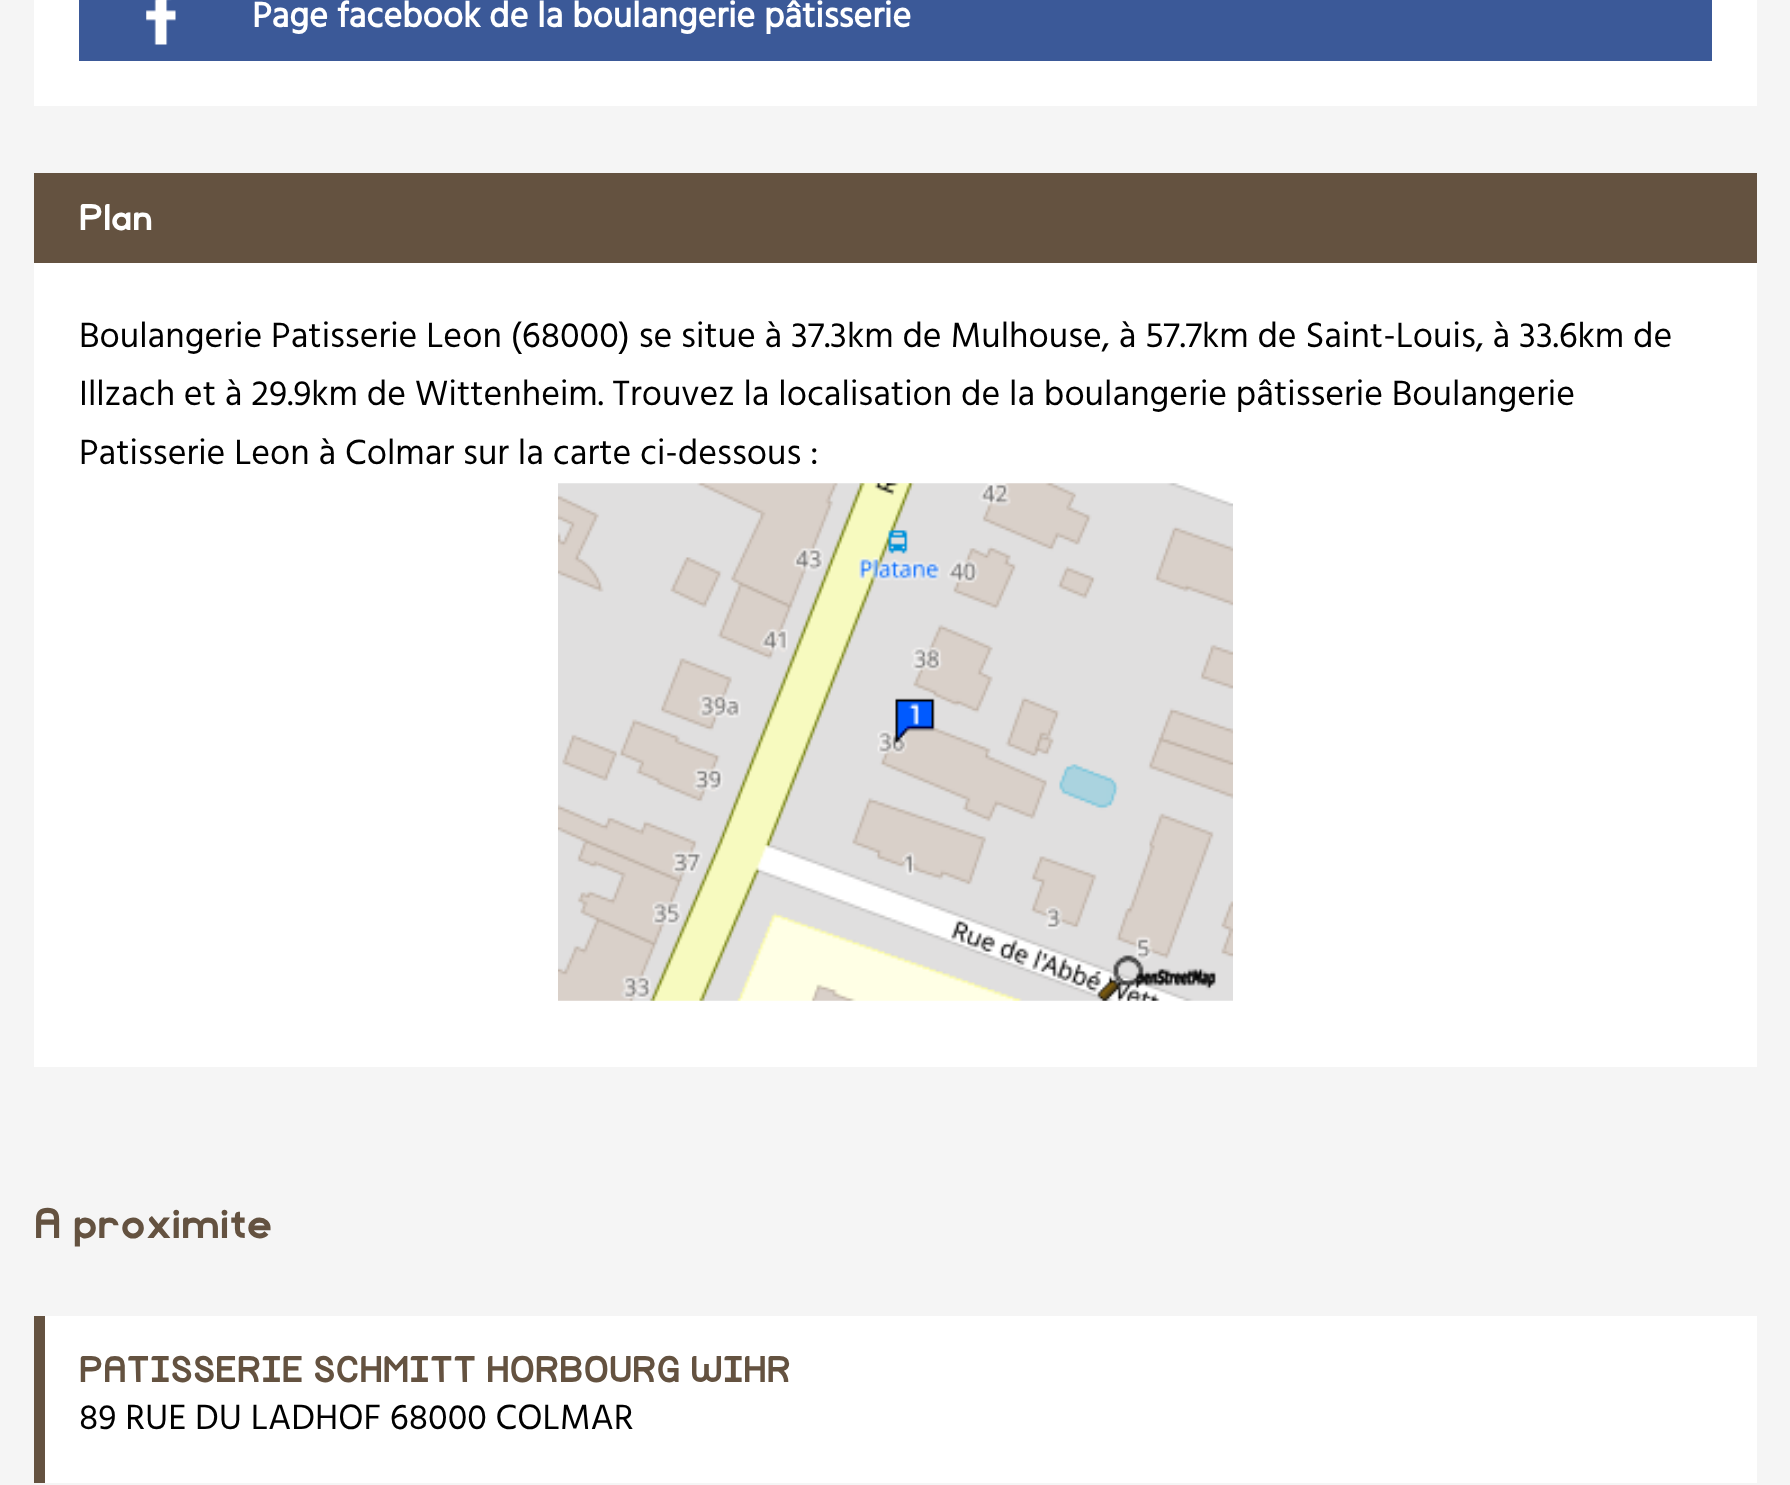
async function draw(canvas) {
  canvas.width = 1790;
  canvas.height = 1485;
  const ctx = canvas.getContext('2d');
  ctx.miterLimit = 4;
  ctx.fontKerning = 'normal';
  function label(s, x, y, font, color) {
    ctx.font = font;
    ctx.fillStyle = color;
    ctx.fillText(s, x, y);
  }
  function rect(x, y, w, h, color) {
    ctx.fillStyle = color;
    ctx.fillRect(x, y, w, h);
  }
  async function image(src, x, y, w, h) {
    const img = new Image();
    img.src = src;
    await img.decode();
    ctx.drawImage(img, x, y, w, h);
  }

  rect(0, 0, 1790, 1485, '#f5f5f5');
  rect(34, 0, 1723, 106, '#fff');
  rect(79, 0, 1633, 61, '#3b5998');
  await image('assets/img1.png', 146, 0, 30, 45);
  label('Page facebook de la boulangerie pâtisserie', 252, 27, 'bold 36px Hind', '#fff');
  rect(34, 173, 1723, 90, '#645240');
  label('Plan', 79, 230, 'bold 36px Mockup', '#fff');
  rect(34, 263, 1723, 804, '#fff');
  label('Boulangerie Patisserie Leon (68000) se situe à 37.3km de Mulhouse, à 57.7km de Saint-Louis, à 33.6km de', 79, 347, '36px Hind', '#000');
  label('Illzach et à 29.9km de Wittenheim. Trouvez la localisation de la boulangerie pâtisserie Boulangerie', 79, 405, '36px Hind', '#000');
  label('Patisserie Leon à Colmar sur la carte ci-dessous :', 79, 464, '36px Hind', '#000');
  await image('assets/img2.png', 558, 483, 675, 518);
  label('A proximite', 34, 1238, 'bold 42px Mockup', '#645240');
  rect(45, 1316, 1712, 167, '#fff');
  rect(34, 1316, 11, 167, '#645240');
  label('PATISSERIE SCHMITT HORBOURG WIHR', 79, 1382, 'bold 36px Mockup', '#645240');
  label('89 RUE DU LADHOF 68000 COLMAR', 79, 1429, '36px Hind', '#000');
}

draw(document.querySelector('canvas'));
